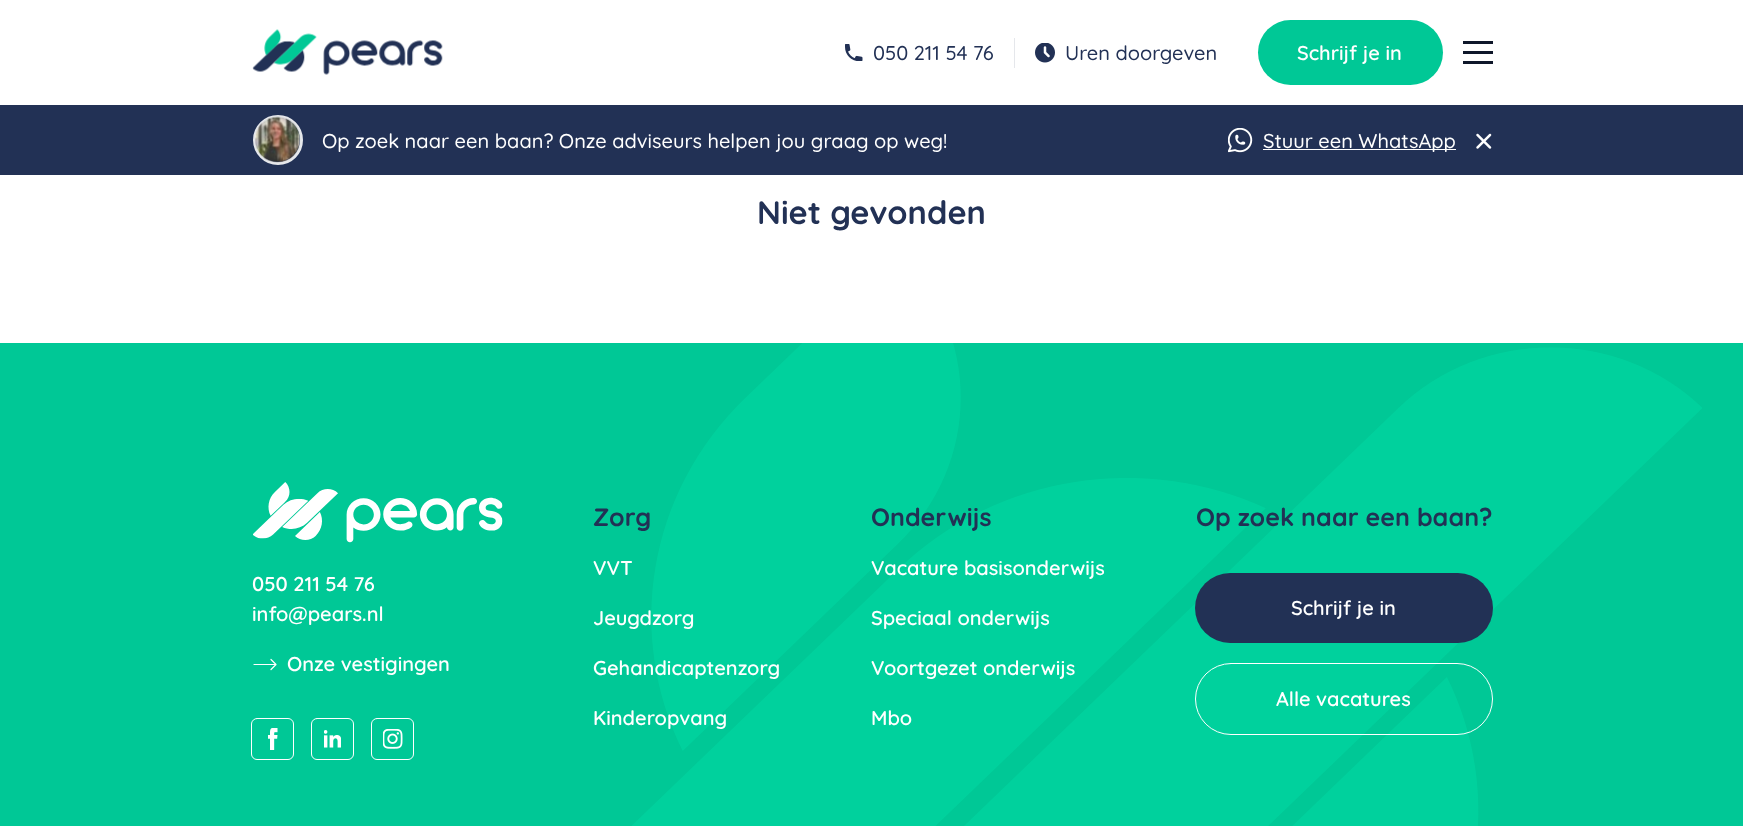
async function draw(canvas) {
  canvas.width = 1743;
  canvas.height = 826;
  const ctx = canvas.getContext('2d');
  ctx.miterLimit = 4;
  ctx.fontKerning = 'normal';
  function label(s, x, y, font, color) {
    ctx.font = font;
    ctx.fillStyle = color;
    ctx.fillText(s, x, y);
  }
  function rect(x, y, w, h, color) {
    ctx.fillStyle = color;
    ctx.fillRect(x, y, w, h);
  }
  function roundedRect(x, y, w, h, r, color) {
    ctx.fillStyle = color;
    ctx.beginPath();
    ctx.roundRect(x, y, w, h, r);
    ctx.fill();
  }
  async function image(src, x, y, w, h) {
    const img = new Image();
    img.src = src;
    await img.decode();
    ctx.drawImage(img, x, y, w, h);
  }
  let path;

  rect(0, 0, 1743, 826, '#fff');
  await image('assets/img1.png', 252, 29, 191, 46);
  rect(1014, 38, 1, 30, '#e5e7eb');
  await image('assets/img2.png', 845, 44, 18, 17);
  label('050 211 54 76', 873, 60, '500 20px Quicksand', '#223155');
  await image('assets/img3.png', 1035, 43, 20, 20);
  label('Uren doorgeven', 1065, 60, '500 20px Quicksand', '#223155');
  roundedRect(1258, 20, 185, 65, 32.5, '#00c896');
  label('Schrijf je in', 1297, 60, '600 20px Quicksand', '#fff');
  rect(1463, 41, 30, 3, '#0f172a');
  rect(1463, 51, 30, 3, '#0f172a');
  rect(1463, 61, 30, 3, '#0f172a');
  rect(0, 105, 1743, 70, '#223155');
  ctx.beginPath();
  ctx.arc(278, 140, 23.5, 0, 2 * Math.PI);
  ctx.strokeStyle = '#e5e7eb';
  ctx.lineWidth = 3;
  ctx.stroke();
  await image('assets/img4.png', 255, 116, 46, 47);
  label('Op zoek naar een baan? Onze adviseurs helpen jou graag op weg!', 322, 148, '500 20px Quicksand', '#fff');
  await image('assets/img5.png', 1228, 128, 25, 25);
  rect(1263, 149, 193, 1, '#fff');
  label('Stuur een WhatsApp', 1263, 148, '500 20px Quicksand', '#fff');
  await image('assets/img6.png', 1476, 133, 16, 16);
  label('Niet gevonden', 757, 224, 'bold 32.5px Quicksand', '#223155');
  rect(0, 343, 1743, 483, '#00c896');
  await image('assets/img7.png', 632, 343, 1070, 483);
  await image('assets/img8.png', 253, 482, 250, 61);
  label('050 211 54 76', 252, 591, '600 20px Quicksand', '#fff');
  label('info@pears.nl', 252, 621, '600 20px Quicksand', '#fff');
  path = new Path2D('M271 659.5L276 664.5M276 664.5L271 669.5M276 664.5H254');
  ctx.strokeStyle = '#fff';
  ctx.lineWidth = 1.2;
  ctx.lineCap = 'round';
  ctx.lineJoin = 'round';
  ctx.stroke(path);
  label('Onze vestigingen', 287, 671, '600 20px Quicksand', '#fff');
  ctx.beginPath();
  ctx.roundRect(251.5, 718.5, 42, 41, 5.5);
  ctx.lineWidth = 1;
  ctx.lineJoin = 'miter';
  ctx.stroke();
  await image('assets/img9.png', 268, 728, 10, 22);
  ctx.beginPath();
  ctx.roundRect(311.5, 718.5, 42, 41, 5.5);
  ctx.stroke();
  await image('assets/img10.png', 324, 730, 17, 18);
  ctx.beginPath();
  ctx.roundRect(371.5, 718.5, 42, 41, 5.5);
  ctx.stroke();
  await image('assets/img11.png', 383, 729, 20, 20);
  label('Zorg', 593, 526, 'bold 25px Quicksand', '#223155');
  label('VVT', 593, 575, '600 20px Quicksand', '#fff');
  label('Jeugdzorg', 593, 625, '600 20px Quicksand', '#fff');
  label('Gehandicaptenzorg', 593, 675, '600 20px Quicksand', '#fff');
  label('Kinderopvang', 593, 725, '600 20px Quicksand', '#fff');
  label('Onderwijs', 871, 526, 'bold 25px Quicksand', '#223155');
  label('Vacature basisonderwijs', 871, 575, '600 20px Quicksand', '#fff');
  label('Speciaal onderwijs', 871, 625, '600 20px Quicksand', '#fff');
  label('Voortgezet onderwijs', 871, 675, '600 20px Quicksand', '#fff');
  label('Mbo', 871, 725, '600 20px Quicksand', '#fff');
  label('Op zoek naar een baan?', 1196, 526, 'bold 25px Quicksand', '#223155');
  roundedRect(1195, 573, 298, 70, 35, '#223155');
  label('Schrijf je in', 1291, 615, '600 20px Quicksand', '#fff');
  ctx.beginPath();
  ctx.roundRect(1195.5, 663.5, 297, 71, 35.5);
  ctx.stroke();
  label('Alle vacatures', 1276, 706, '600 20px Quicksand', '#fff');
}

draw(document.querySelector('canvas'));
